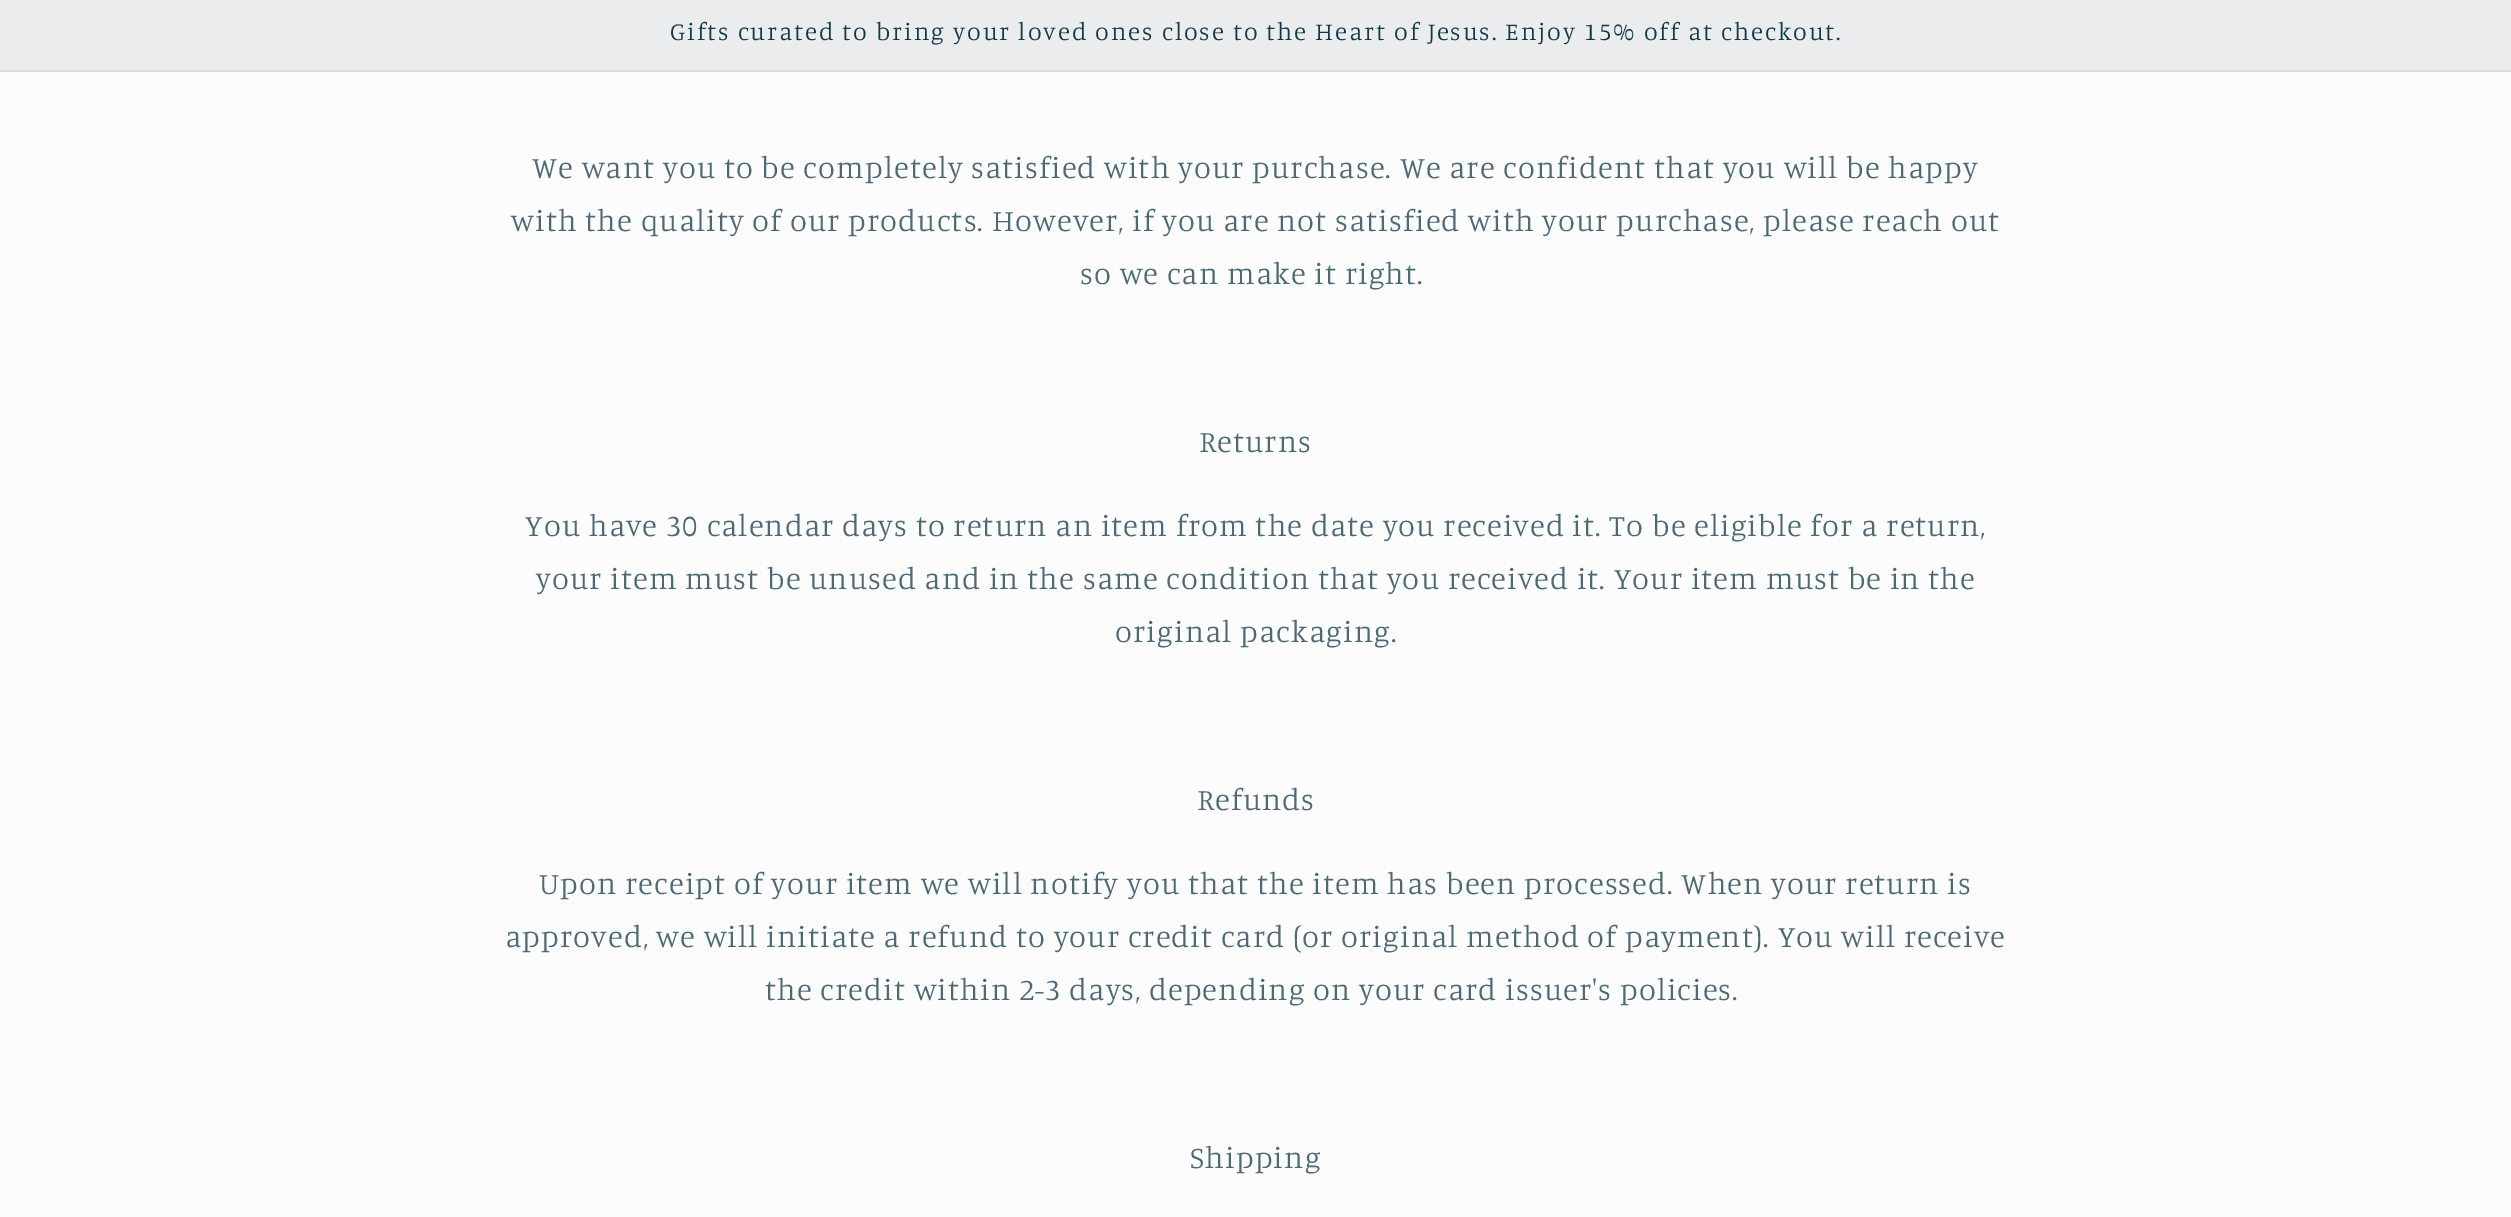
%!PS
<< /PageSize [2511 1217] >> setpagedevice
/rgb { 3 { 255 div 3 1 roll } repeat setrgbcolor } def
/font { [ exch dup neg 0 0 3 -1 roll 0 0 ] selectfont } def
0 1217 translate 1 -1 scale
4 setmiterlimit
252 252 252 rgb
0 0 2511 1217 rectfill
235 236 237 rgb
0 0 2511 70 rectfill
217 222 224 rgb
0 70 2511 2 rectfill
/Manuale-Light 25.05 font
16 57 72 rgb
670 40 moveto 1.93 0 (Gifts curated to bring your loved ones close to the Heart of Jesus. Enjoy 15% off at checkout.) ashow
/Manuale-Light 30.8 font
75 106 117 rgb
532 178 moveto 1.16 0 (We want you to be completely satisfied with your purchase. We are confident that you will be happy) ashow
511 231 moveto 1.16 0 (with the quality of our products. However, if you are not satisfied with your purchase, please reach out) ashow
1080 284 moveto 1.16 0 (so we can make it right.) ashow
1199 452 moveto 1.16 0 (Returns) ashow
525 536 moveto 1.16 0 (You have 30 calendar days to return an item from the date you received it. To be eligible for a return,) ashow
536 589 moveto 1.16 0 (your item must be unused and in the same condition that you received it. Your item must be in the) ashow
1115 642 moveto 1.16 0 (original packaging.) ashow
1197 810 moveto 1.16 0 (Refunds) ashow
539 894 moveto 1.16 0 (Upon receipt of your item we will notify you that the item has been processed. When your return is) ashow
505 947 moveto 1.16 0 (approved, we will initiate a refund to your credit card \(or original method of payment\). You will receive) ashow
765 1000 moveto 1.16 0 (the credit within 2-3 days, depending on your card issuer's policies.) ashow
1190 1168 moveto 1.16 0 (Shipping) ashow
showpage
